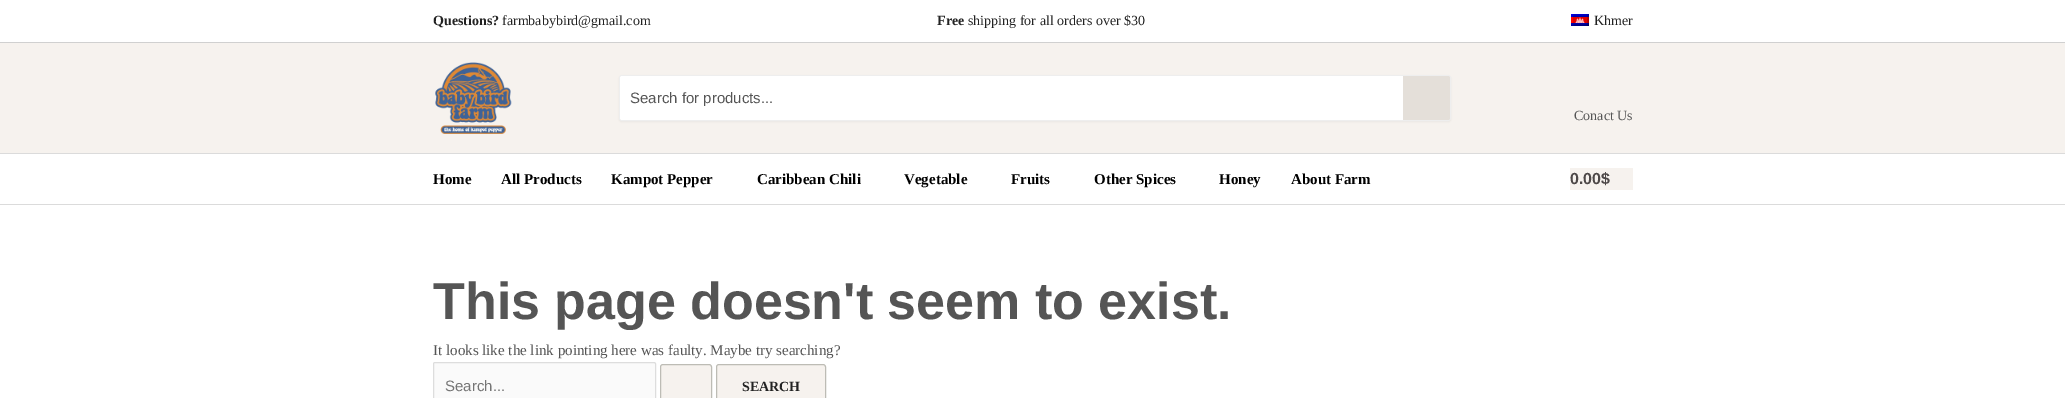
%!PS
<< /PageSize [2065 398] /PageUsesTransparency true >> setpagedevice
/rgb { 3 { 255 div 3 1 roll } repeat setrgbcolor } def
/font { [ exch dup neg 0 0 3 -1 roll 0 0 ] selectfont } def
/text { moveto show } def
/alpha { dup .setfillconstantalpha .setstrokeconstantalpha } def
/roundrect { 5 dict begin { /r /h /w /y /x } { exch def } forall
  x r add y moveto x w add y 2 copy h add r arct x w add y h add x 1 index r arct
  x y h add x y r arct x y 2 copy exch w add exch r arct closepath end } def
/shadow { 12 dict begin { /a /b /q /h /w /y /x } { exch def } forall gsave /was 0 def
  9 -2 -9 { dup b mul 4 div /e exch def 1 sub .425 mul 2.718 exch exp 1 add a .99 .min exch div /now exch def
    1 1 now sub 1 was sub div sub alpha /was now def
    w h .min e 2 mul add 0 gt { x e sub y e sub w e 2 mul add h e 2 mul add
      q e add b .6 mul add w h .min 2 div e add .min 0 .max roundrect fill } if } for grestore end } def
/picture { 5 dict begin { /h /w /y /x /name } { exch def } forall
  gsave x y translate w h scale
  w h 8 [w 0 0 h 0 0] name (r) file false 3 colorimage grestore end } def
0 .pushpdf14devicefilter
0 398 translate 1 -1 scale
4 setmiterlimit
255 255 255 rgb
0 0 2065 398 rectfill
208 208 208 rgb
0 42 2065 1 rectfill
(img_01.rgb) 1571 14 18 12 picture
246 242 238 rgb
0 43 2065 110 rectfill
(img_02.rgb) 435 62 77 72 picture
0 0 0 rgb
619 76 832 46 3 1 0.05 shadow
238 238 238 rgb
619.5 75.5 831 45 2.5 roundrect stroke
255 255 255 rgb
622 76 moveto 781 0 rlineto 0 44 rlineto -781 0 rlineto -1 0 -2 -1 -2 -2 rcurveto 0 -40 rlineto 0 -1 1 -2 2 -2 rcurveto closepath fill
228 223 217 rgb
1403 76 moveto 45 0 rlineto 1 0 2 1 2 2 rcurveto 0 40 rlineto 0 1 -1 2 -2 2 rcurveto -45 0 rlineto closepath fill
219 219 219 rgb
0 153 2065 1 rectfill
0 204 2065 1 rectfill
246 242 238 rgb
1570 168 63 22 rectfill
250 250 250 rgb
433.5 362.5 222 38 1.5 roundrect gsave fill grestore
221 221 221 rgb
stroke
246 242 238 rgb
660.5 364.5 51 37 2.5 roundrect gsave fill grestore
189 188 181 rgb
stroke
246 242 238 rgb
716.5 364.5 109 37 2.5 roundrect gsave fill grestore
189 188 181 rgb
stroke
/LiberationSerif-Bold 14 font
34 34 34 rgb
(Questions?) 433 25 text
/LiberationSerif-Regular 14 font
(farmbabybird@gmail.com) 502 25 text
/LiberationSerif-Bold 14 font
(Free) 937 25 text
/LiberationSerif-Regular 14 font
(shipping for all orders over $30) 968 25 text
(Khmer) 1594 25 text
/LiberationSans-Regular 15 font
85 85 85 rgb
(Search for products...) 630 103 text
/LiberationSerif-Regular 14 font
(Conact Us) 1574 120 text
/LiberationSerif-Bold 15 font
0 0 0 rgb
(Home) 433 184 text
(All Products) 501 184 text
(Kampot Pepper) 611 184 text
(Caribbean Chili) 757 184 text
(Vegetable) 904 184 text
(Fruits) 1011 184 text
(Other Spices) 1094 184 text
(Honey) 1219 184 text
(About Farm) 1291 184 text
/LiberationSans-Bold 16 font
77 72 72 rgb
(0.00$) 1570 184 text
/LiberationSans-Bold 52 font
85 85 85 rgb
(This page doesn't seem to exist.) 433 319 text
/LiberationSerif-Regular 15 font
(It looks like the link pointing here was faulty. Maybe try searching?) 433 355 text
/LiberationSans-Regular 15 font
117 117 117 rgb
(Search...) 445 391 text
/LiberationSerif-Bold 14 font
34 34 34 rgb
(SEARCH) 742 391 text
.poppdf14devicefilter showpage
